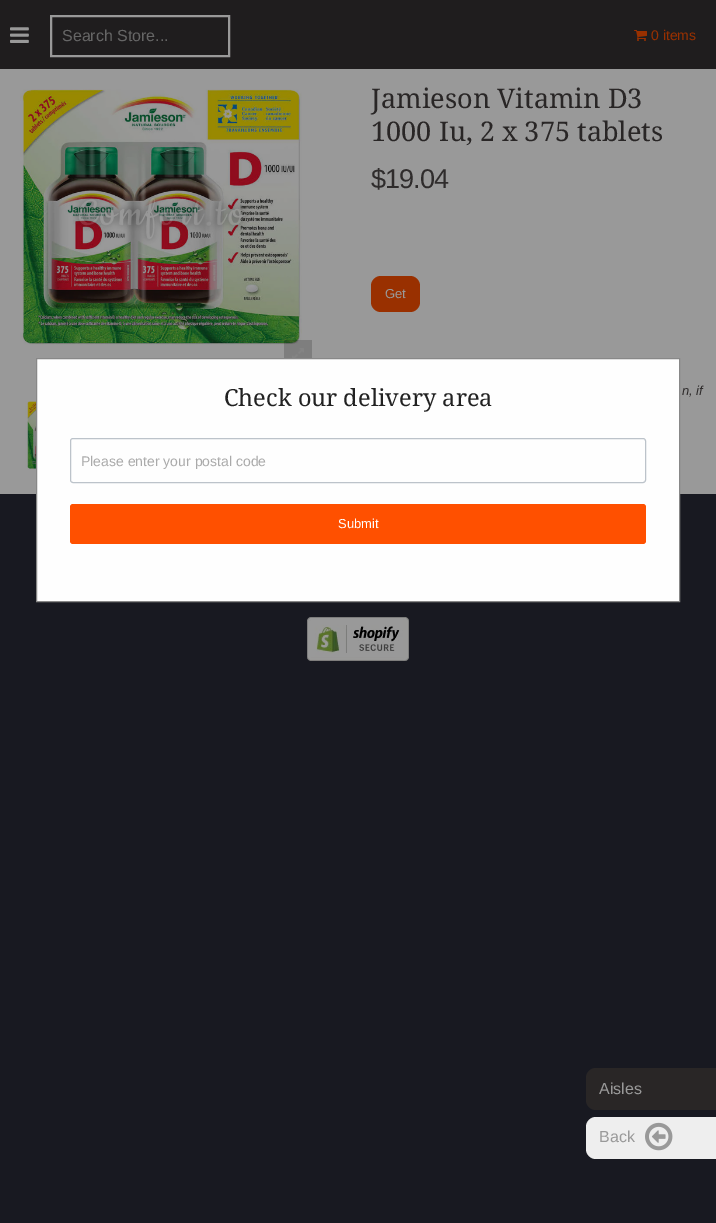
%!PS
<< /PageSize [716 1223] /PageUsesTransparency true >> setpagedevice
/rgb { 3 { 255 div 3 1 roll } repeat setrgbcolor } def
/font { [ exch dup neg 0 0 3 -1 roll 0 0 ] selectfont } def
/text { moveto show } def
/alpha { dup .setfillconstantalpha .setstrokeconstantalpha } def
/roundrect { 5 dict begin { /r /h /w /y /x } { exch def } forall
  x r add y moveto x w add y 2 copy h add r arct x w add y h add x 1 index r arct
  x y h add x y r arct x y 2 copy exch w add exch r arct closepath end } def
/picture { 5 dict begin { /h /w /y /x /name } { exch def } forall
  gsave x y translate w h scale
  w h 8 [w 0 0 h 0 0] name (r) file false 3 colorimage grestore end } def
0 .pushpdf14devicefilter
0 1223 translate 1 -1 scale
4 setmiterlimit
24 25 33 rgb
0 0 716 1223 rectfill
31 29 30 rgb
0 0 716 69 rectfill
(img_01.rgb) 10 27 19 16 picture
153 153 153 rgb
2 setlinewidth
51 16 178 40 rectstroke
(img_02.rgb) 634 30 13 11 picture
0 69 716 425 rectfill
(img_03.rgb) 20 89 282 256 picture
0.2 alpha
20 20 20 rgb
284 340 28 18 rectfill
1 alpha
(img_04.rgb) 292 348 12 10 picture
(img_05.rgb) 25 401 11 69 picture
153 48 0 rgb
371 276 49 36 10 roundrect fill
254 254 254 rgb
36.5 358.5 moveto 643 0 rlineto 0 243 rlineto -643 0 rlineto closepath gsave fill grestore
136 136 136 rgb
1 setlinewidth
stroke
188 195 202 rgb
70.5 438.5 575 44 2.5 roundrect stroke
255 80 0 rgb
70 504 576 40 3 roundrect fill
(img_06.rgb) 307 617 102 44 picture
41 38 38 rgb
596 1068 moveto 120 0 rlineto 0 42 rlineto -120 0 rlineto -5.5 0 -10 -4.5 -10 -10 rcurveto 0 -22 rlineto 0 -5.5 4.5 -10 10 -10 rcurveto closepath fill
238 238 238 rgb
596 1117 moveto 120 0 rlineto 0 42 rlineto -120 0 rlineto -5.5 0 -10 -4.5 -10 -10 rcurveto 0 -22 rlineto 0 -5.5 4.5 -10 10 -10 rcurveto closepath fill
(img_07.rgb) 645 1122 28 29 picture
/LiberationSans-Regular 16 font
102 102 102 rgb
(Search Store...) 62 41 text
/LiberationSans-Regular 14 font
153 48 0 rgb
(0 items) 651 40 text
/DroidSerif-Regular 27.1 font
41 38 38 rgb
(Jamieson Vitamin D3) 371 108 text
(1000 Iu, 2 x 375 tablets) 371 141 text
/LiberationSans-Regular 27.1 font
47 44 44 rgb
371 188 moveto -1 0 ($19.04) ashow
/LiberationSans-Regular 13 font
153 153 153 rgb
(Get) 385 298 text
/LiberationSans-Italic 13 font
47 44 44 rgb
(n, if) 682 395 text
/DroidSerif-Regular 23.6 font
34 34 34 rgb
(Check our delivery area) 224 406 text
/LiberationSans-Regular 14 font
170 170 170 rgb
(Please enter your postal code) 81 466 text
/LiberationSans-Regular 13 font
255 255 255 rgb
(Submit) 338 528 text
/LiberationSans-Regular 16 font
153 153 153 rgb
(Aisles) 599 1094 text
(Back) 599 1142 text
.poppdf14devicefilter showpage
